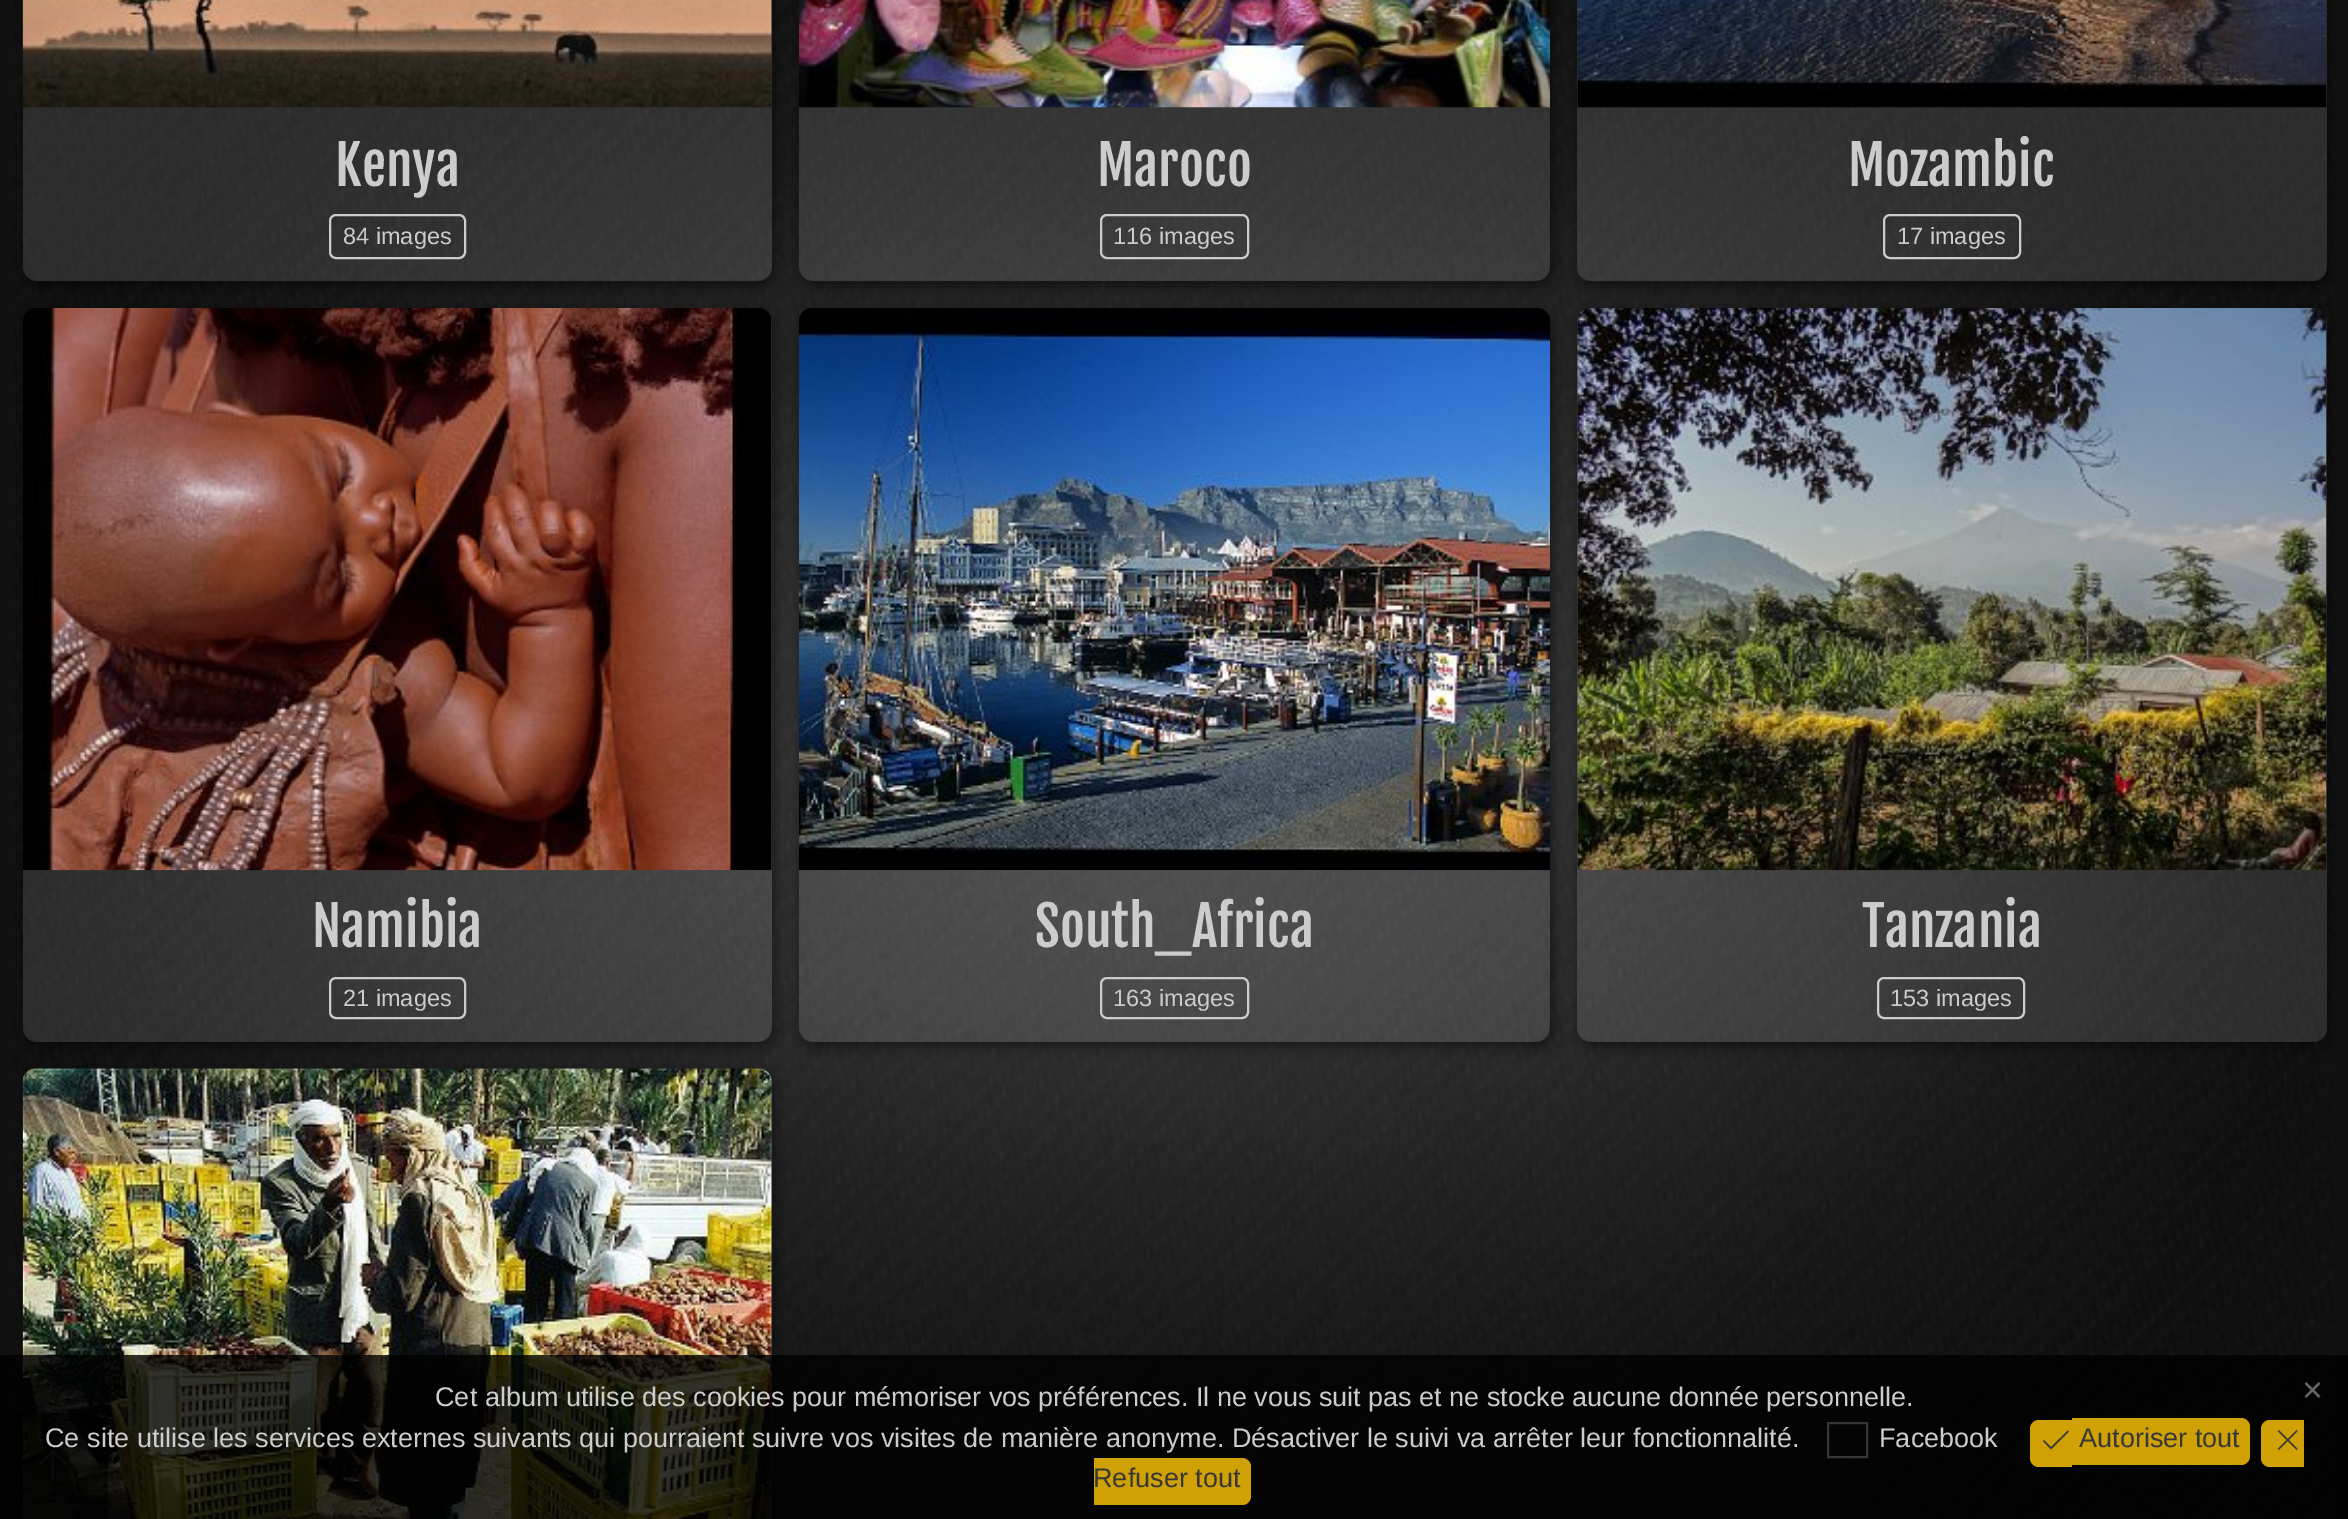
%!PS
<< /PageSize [2348 1519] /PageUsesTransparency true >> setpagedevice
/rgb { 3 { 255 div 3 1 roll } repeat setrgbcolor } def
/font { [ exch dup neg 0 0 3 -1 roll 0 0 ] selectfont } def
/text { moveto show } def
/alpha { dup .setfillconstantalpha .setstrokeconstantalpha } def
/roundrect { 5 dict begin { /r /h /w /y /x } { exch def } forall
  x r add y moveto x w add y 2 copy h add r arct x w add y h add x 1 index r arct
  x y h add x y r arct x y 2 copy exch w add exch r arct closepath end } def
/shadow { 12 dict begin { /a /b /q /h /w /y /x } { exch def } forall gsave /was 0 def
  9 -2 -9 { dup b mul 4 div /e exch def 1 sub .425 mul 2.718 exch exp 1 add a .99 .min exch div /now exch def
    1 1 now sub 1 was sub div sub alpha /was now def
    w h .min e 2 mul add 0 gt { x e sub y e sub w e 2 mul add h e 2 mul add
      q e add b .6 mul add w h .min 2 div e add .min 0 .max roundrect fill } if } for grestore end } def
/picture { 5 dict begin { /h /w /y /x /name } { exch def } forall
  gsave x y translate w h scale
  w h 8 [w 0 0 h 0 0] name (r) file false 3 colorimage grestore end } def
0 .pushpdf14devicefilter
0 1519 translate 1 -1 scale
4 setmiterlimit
17 17 17 rgb
0 0 2348 1519 rectfill
(img_01.rgb) 14 0 2321 1519 picture
gsave
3 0 moveto 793 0 rlineto 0 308 rlineto -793 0 rlineto closepath 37 -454 moveto 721 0 rlineto 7.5 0 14 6.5 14 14 rcurveto 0 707 rlineto 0 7.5 -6.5 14 -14 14 rcurveto -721 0 rlineto -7.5 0 -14 -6.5 -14 -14 rcurveto 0 -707 rlineto 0 -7.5 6.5 -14 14 -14 rcurveto closepath eoclip newpath
0 0 0 rgb
25 -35 749 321 14 7 0.52 shadow
grestore
0.13 alpha
238 238 238 rgb
23 -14 749 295 14 roundrect fill
1 alpha
(img_02.rgb) 22 0 750 108 picture
204 204 204 rgb
2 setlinewidth
330 215 135 43 6 roundrect stroke
gsave
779 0 moveto 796 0 rlineto 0 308 rlineto -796 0 rlineto closepath 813 -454 moveto 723 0 rlineto 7.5 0 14 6.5 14 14 rcurveto 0 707 rlineto 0 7.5 -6.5 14 -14 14 rcurveto -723 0 rlineto -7.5 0 -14 -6.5 -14 -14 rcurveto 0 -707 rlineto 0 -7.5 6.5 -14 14 -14 rcurveto closepath eoclip newpath
0 0 0 rgb
801 -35 752 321 14 7 0.52 shadow
grestore
0.13 alpha
238 238 238 rgb
799 -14 751 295 14 roundrect fill
1 alpha
(img_03.rgb) 799 0 751 108 picture
204 204 204 rgb
1101 215 147 43 6 roundrect stroke
gsave
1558 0 moveto 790 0 rlineto 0 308 rlineto -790 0 rlineto closepath 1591 -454 moveto 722 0 rlineto 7.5 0 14 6.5 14 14 rcurveto 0 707 rlineto 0 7.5 -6.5 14 -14 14 rcurveto -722 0 rlineto -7.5 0 -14 -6.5 -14 -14 rcurveto 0 -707 rlineto 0 -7.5 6.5 -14 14 -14 rcurveto closepath eoclip newpath
0 0 0 rgb
1580 -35 749 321 14 7 0.52 shadow
grestore
0.13 alpha
238 238 238 rgb
1577 -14 750 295 14 roundrect fill
1 alpha
(img_04.rgb) 1577 0 750 108 picture
204 204 204 rgb
1884 215 136 43 6 roundrect stroke
gsave
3 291 moveto 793 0 rlineto 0 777 rlineto -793 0 rlineto closepath 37 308 moveto 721 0 rlineto 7.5 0 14 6.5 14 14 rcurveto 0 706 rlineto 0 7.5 -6.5 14 -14 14 rcurveto -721 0 rlineto -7.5 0 -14 -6.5 -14 -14 rcurveto 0 -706 rlineto 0 -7.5 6.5 -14 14 -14 rcurveto closepath eoclip newpath
0 0 0 rgb
25 313 749 733 14 7 0.52 shadow
grestore
0.13 alpha
238 238 238 rgb
23 308 749 734 14 roundrect fill
1 alpha
(img_05.rgb) 23 308 749 563 picture
204 204 204 rgb
330 978 135 40 6 roundrect stroke
gsave
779 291 moveto 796 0 rlineto 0 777 rlineto -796 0 rlineto closepath 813 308 moveto 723 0 rlineto 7.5 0 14 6.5 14 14 rcurveto 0 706 rlineto 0 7.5 -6.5 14 -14 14 rcurveto -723 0 rlineto -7.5 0 -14 -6.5 -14 -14 rcurveto 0 -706 rlineto 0 -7.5 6.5 -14 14 -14 rcurveto closepath eoclip newpath
0 0 0 rgb
801 313 752 733 14 7 0.52 shadow
grestore
0.13 alpha
238 238 238 rgb
799 308 751 734 14 roundrect fill
1 alpha
(img_06.rgb) 799 308 751 563 picture
204 204 204 rgb
1101 978 147 40 6 roundrect stroke
gsave
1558 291 moveto 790 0 rlineto 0 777 rlineto -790 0 rlineto closepath 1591 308 moveto 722 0 rlineto 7.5 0 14 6.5 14 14 rcurveto 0 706 rlineto 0 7.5 -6.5 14 -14 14 rcurveto -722 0 rlineto -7.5 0 -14 -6.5 -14 -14 rcurveto 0 -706 rlineto 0 -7.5 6.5 -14 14 -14 rcurveto closepath eoclip newpath
0 0 0 rgb
1580 313 749 733 14 7 0.52 shadow
grestore
0.13 alpha
238 238 238 rgb
1577 308 750 734 14 roundrect fill
1 alpha
(img_07.rgb) 1577 308 750 563 picture
204 204 204 rgb
1878 978 146 40 6 roundrect stroke
0 0 0 rgb
25 1073 749 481 14 7 0.52 shadow
0.13 alpha
238 238 238 rgb
23 1069 749 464 14 roundrect fill
1 alpha
(img_08.rgb) 22 1068 750 451 picture
0.5 alpha
0 0 0 rgb
0 1413 moveto 99 0 rlineto 5 0 9 4 9 9 rcurveto 0 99 rlineto -108 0 rlineto closepath fill
1 alpha
55 55 55 rgb
54 1480.5 moveto 0 -27 rlineto 11.5 11.5 rlineto 1.5 -1.5 rlineto -14 -14 rlineto -14.5 14 rlineto 1.5 1.5 rlineto 11.5 -11.5 rlineto 0 27 rlineto closepath fill
0.8 alpha
0 0 0 rgb
0 1355 2348 164 rectfill
1 alpha
54 54 54 rgb
1828 1423 39 34 rectstroke
208 161 5 rgb
2039 1420 moveto 33 0 rlineto 0 47 rlineto -33 0 rlineto -5 0 -9 -4 -9 -9 rcurveto 0 -29 rlineto 0 -5 4 -9 9 -9 rcurveto closepath fill
2072 1418 moveto 169 0 rlineto 5 0 9 4 9 9 rcurveto 0 29 rlineto 0 5 -4 9 -9 9 rcurveto -169 0 rlineto closepath fill
55 55 55 rgb
2068 1430.5 moveto -17 16.5 rlineto -7 -7 rlineto -1 1 rlineto 8 8.5 rlineto 18 -18 rlineto closepath fill
208 161 5 rgb
2270 1420 moveto 34 0 rlineto 0 47 rlineto -34 0 rlineto -5 0 -9 -4 -9 -9 rcurveto 0 -29 rlineto 0 -5 4 -9 9 -9 rcurveto closepath fill
(img_09.rgb) 2277 1430 21 20 picture
1094 1458 moveto 148 0 rlineto 5 0 9 4 9 9 rcurveto 0 29 rlineto 0 5 -4 9 -9 9 rcurveto -148 0 rlineto closepath fill
/FjallaOne-Regular 54 font
204 204 204 rgb
(Kenya) 335 186 text
/LiberationSans-Regular 23.5 font
(84 images) 343 244 text
/FjallaOne-Regular 54 font
(Maroco) 1097 186 text
/LiberationSans-Regular 23.5 font
(116 images) 1113 244 text
/FjallaOne-Regular 54 font
(Mozambic) 1848 186 text
/LiberationSans-Regular 23.5 font
(17 images) 1897 244 text
/FjallaOne-Regular 54 font
(Namibia) 312 947 text
/LiberationSans-Regular 23.5 font
(21 images) 343 1006 text
/FjallaOne-Regular 54 font
(South_Africa) 1035 947 text
/LiberationSans-Regular 23.5 font
(163 images) 1113 1006 text
/FjallaOne-Regular 54 font
(Tanzania) 1862 947 text
/LiberationSans-Regular 23.5 font
(153 images) 1890 1006 text
/LiberationSans-Regular 27 font
(Cet album utilise des cookies pour mémoriser vos préférences. Il ne vous suit pas et ne stocke aucune donnée personnelle.) 435 1406 text
/LiberationSans-Regular 36 font
102 102 102 rgb
(×) 2302 1402 text
/LiberationSans-Regular 27 font
204 204 204 rgb
(Ce site utilise les services externes suivants qui pourraient suivre vos visites de manière anonyme. Désactiver le suivi va arrêter leur fonctionnalité.) 45 1447 text
(Facebook) 1879 1447 text
55 55 55 rgb
(Autoriser tout) 2079 1447 text
(Refuser tout) 1093 1487 text
.poppdf14devicefilter showpage
